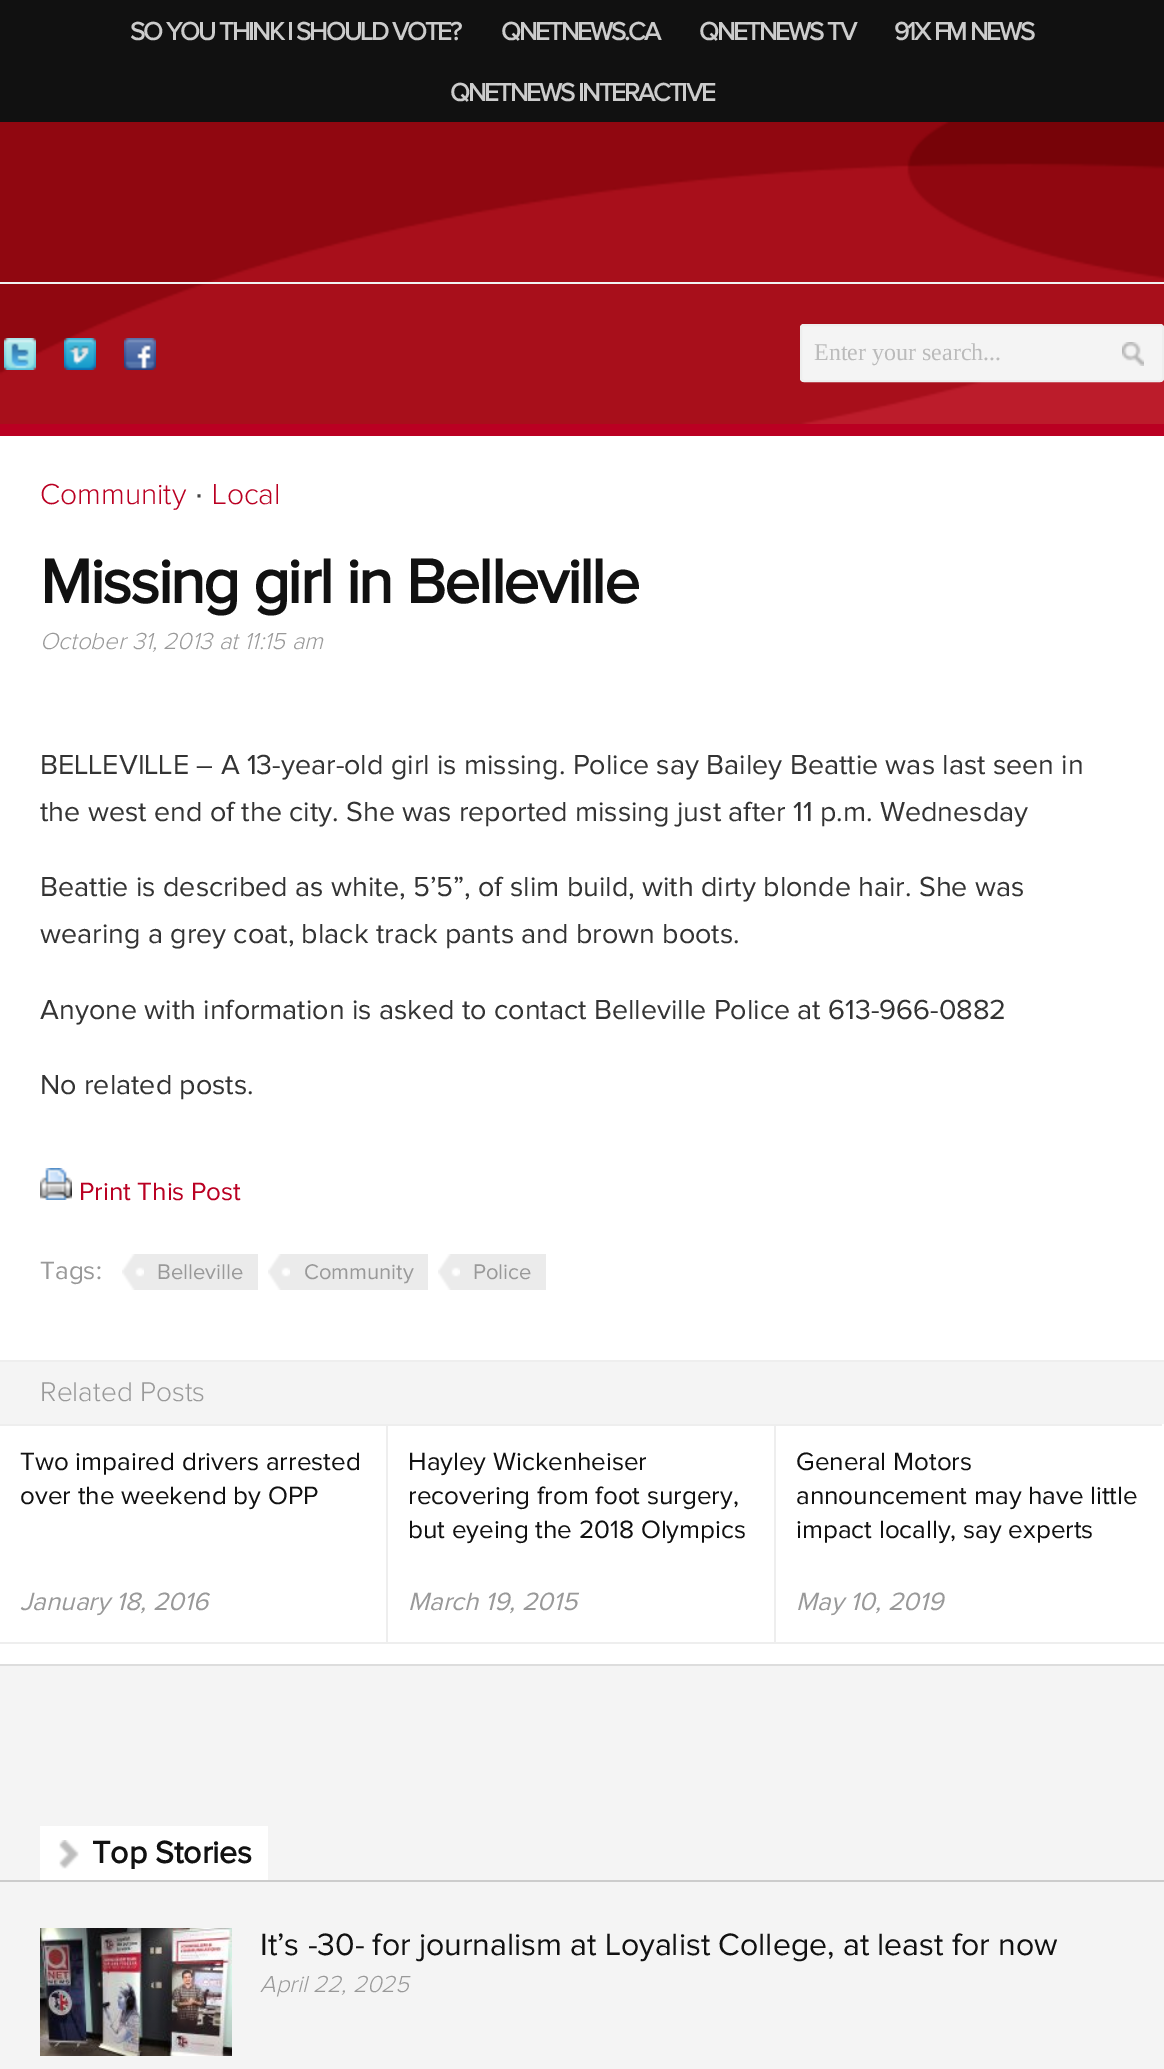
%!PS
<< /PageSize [1164 2069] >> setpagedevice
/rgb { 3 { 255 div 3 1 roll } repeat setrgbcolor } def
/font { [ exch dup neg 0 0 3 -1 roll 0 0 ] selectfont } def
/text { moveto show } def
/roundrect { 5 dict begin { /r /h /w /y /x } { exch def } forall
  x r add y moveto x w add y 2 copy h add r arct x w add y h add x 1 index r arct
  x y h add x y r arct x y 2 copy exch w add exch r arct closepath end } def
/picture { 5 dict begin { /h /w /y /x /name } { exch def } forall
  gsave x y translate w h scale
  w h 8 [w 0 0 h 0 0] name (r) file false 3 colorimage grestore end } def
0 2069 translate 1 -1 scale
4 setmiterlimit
255 255 255 rgb
0 0 1164 2069 rectfill
17 17 17 rgb
0 0 1164 122 rectfill
(img_01.rgb) 0 122 1164 302 picture
241 241 241 rgb
0 282 1164 2 rectfill
(img_02.rgb) 4 338 32 32 picture
(img_03.rgb) 64 338 32 32 picture
(img_04.rgb) 124 338 32 32 picture
244 244 244 rgb
800 324 364 58 4 roundrect fill
(img_05.rgb) 1122 342 22 24 picture
238 238 238 rgb
2 setlinewidth
801 325 362 56 3 roundrect stroke
186 0 34 rgb
0 424 1164 12 rectfill
238 238 238 rgb
0 1360 1164 2 rectfill
(img_06.rgb) 40 1168 32 32 picture
235 235 235 rgb
122 1254 136 36 rectfill
(img_07.rgb) 122 1254 22 36 picture
268 1254 160 36 rectfill
(img_07.rgb) 268 1254 22 36 picture
438 1254 108 36 rectfill
(img_07.rgb) 438 1254 22 36 picture
244 244 244 rgb
0 1362 1164 62 rectfill
238 238 238 rgb
0 1424 1164 2 rectfill
386 1424 2 220 rectfill
0 1642 388 2 rectfill
774 1424 2 220 rectfill
388 1642 776 2 rectfill
255 255 255 rgb
1162 1424 2 2 rectfill
244 244 244 rgb
0 1666 1164 403 rectfill
221 221 221 rgb
0 1664 1164 2 rectfill
204 204 204 rgb
0 1880 1164 2 rectfill
255 255 255 rgb
40 1826 228 54 rectfill
(img_08.rgb) 59 1840 20 29 picture
(img_09.rgb) 40 1928 192 128 picture
/ProximaNova-Bold 26 font
204 204 204 rgb
130 40 moveto -2 0 (SO YOU THINK I SHOULD VOTE?) ashow
501 40 moveto -2 0 (QNETNEWS.CA) ashow
699 40 moveto -2 0 (QNETNEWS TV) ashow
894 40 moveto -2 0 (91X FM NEWS) ashow
450 101 moveto -2 0 (QNETNEWS INTERACTIVE) ashow
/LiberationSerif-Regular 24 font
187 187 187 rgb
(Enter your search...) 814 360 text
/ProximaNova-Light 30 font
186 0 34 rgb
(Community) 40 504 text
/LiberationSans-Regular 30 font
68 68 68 rgb
(·) 194 504 text
/ProximaNova-Light 30 font
186 0 34 rgb
(Local) 212 504 text
/ProximaNova-Bold 64 font
17 17 17 rgb
40 603 moveto -2 0 (Missing girl in Belleville) ashow
/ProximaNova-LightItalic 24 font
153 153 153 rgb
(October 31, 2013 at 11:15 am) 40 649 text
/ProximaNova-Regular 28.6 font
51 51 51 rgb
(BELLEVILLE – A 13-year-old girl is missing. Police say Bailey Beattie was last seen in) 40 774 text
(the west end of the city. She was reported missing just after 11 p.m. Wednesday) 40 821 text
(Beattie is described as white, 5’5”, of slim build, with dirty blonde hair. She was) 40 896 text
(wearing a grey coat, black track pants and brown boots.) 40 943 text
(Anyone with information is asked to contact Belleville Police at 613-966-0882) 40 1019 text
(No related posts.) 40 1094 text
/ProximaNova-Regular 26 font
186 0 34 rgb
(Print This Post) 79 1200 text
153 153 153 rgb
(Tags:) 40 1279 text
/ProximaNova-Regular 22 font
(Belleville) 157 1279 text
(Community) 304 1279 text
(Police) 473 1279 text
/ProximaNova-Light 28 font
(Related Posts) 40 1401 text
/ProximaNova-Regular 26 font
17 17 17 rgb
(Two impaired drivers arrested) 20 1470 text
(over the weekend by OPP) 20 1504 text
/ProximaNova-Italic 26 font
153 153 153 rgb
(January 18, 2016) 20 1610 text
/ProximaNova-Regular 26 font
17 17 17 rgb
(Hayley Wickenheiser) 408 1470 text
(recovering from foot surgery,) 408 1504 text
(but eyeing the 2018 Olympics) 408 1538 text
/ProximaNova-Italic 26 font
153 153 153 rgb
(March 19, 2015) 408 1610 text
/ProximaNova-Regular 26 font
17 17 17 rgb
(General Motors) 796 1470 text
(announcement may have little) 796 1504 text
(impact locally, say experts) 796 1538 text
/ProximaNova-Italic 26 font
153 153 153 rgb
(May 10, 2019) 796 1610 text
/ProximaNova-Bold 32 font
17 17 17 rgb
(Top Stories) 92 1863 text
/ProximaNova-Regular 32 font
(It’s -30- for journalism at Loyalist College, at least for now) 260 1955 text
/ProximaNova-LightItalic 24 font
153 153 153 rgb
(April 22, 2025) 260 1992 text
showpage
